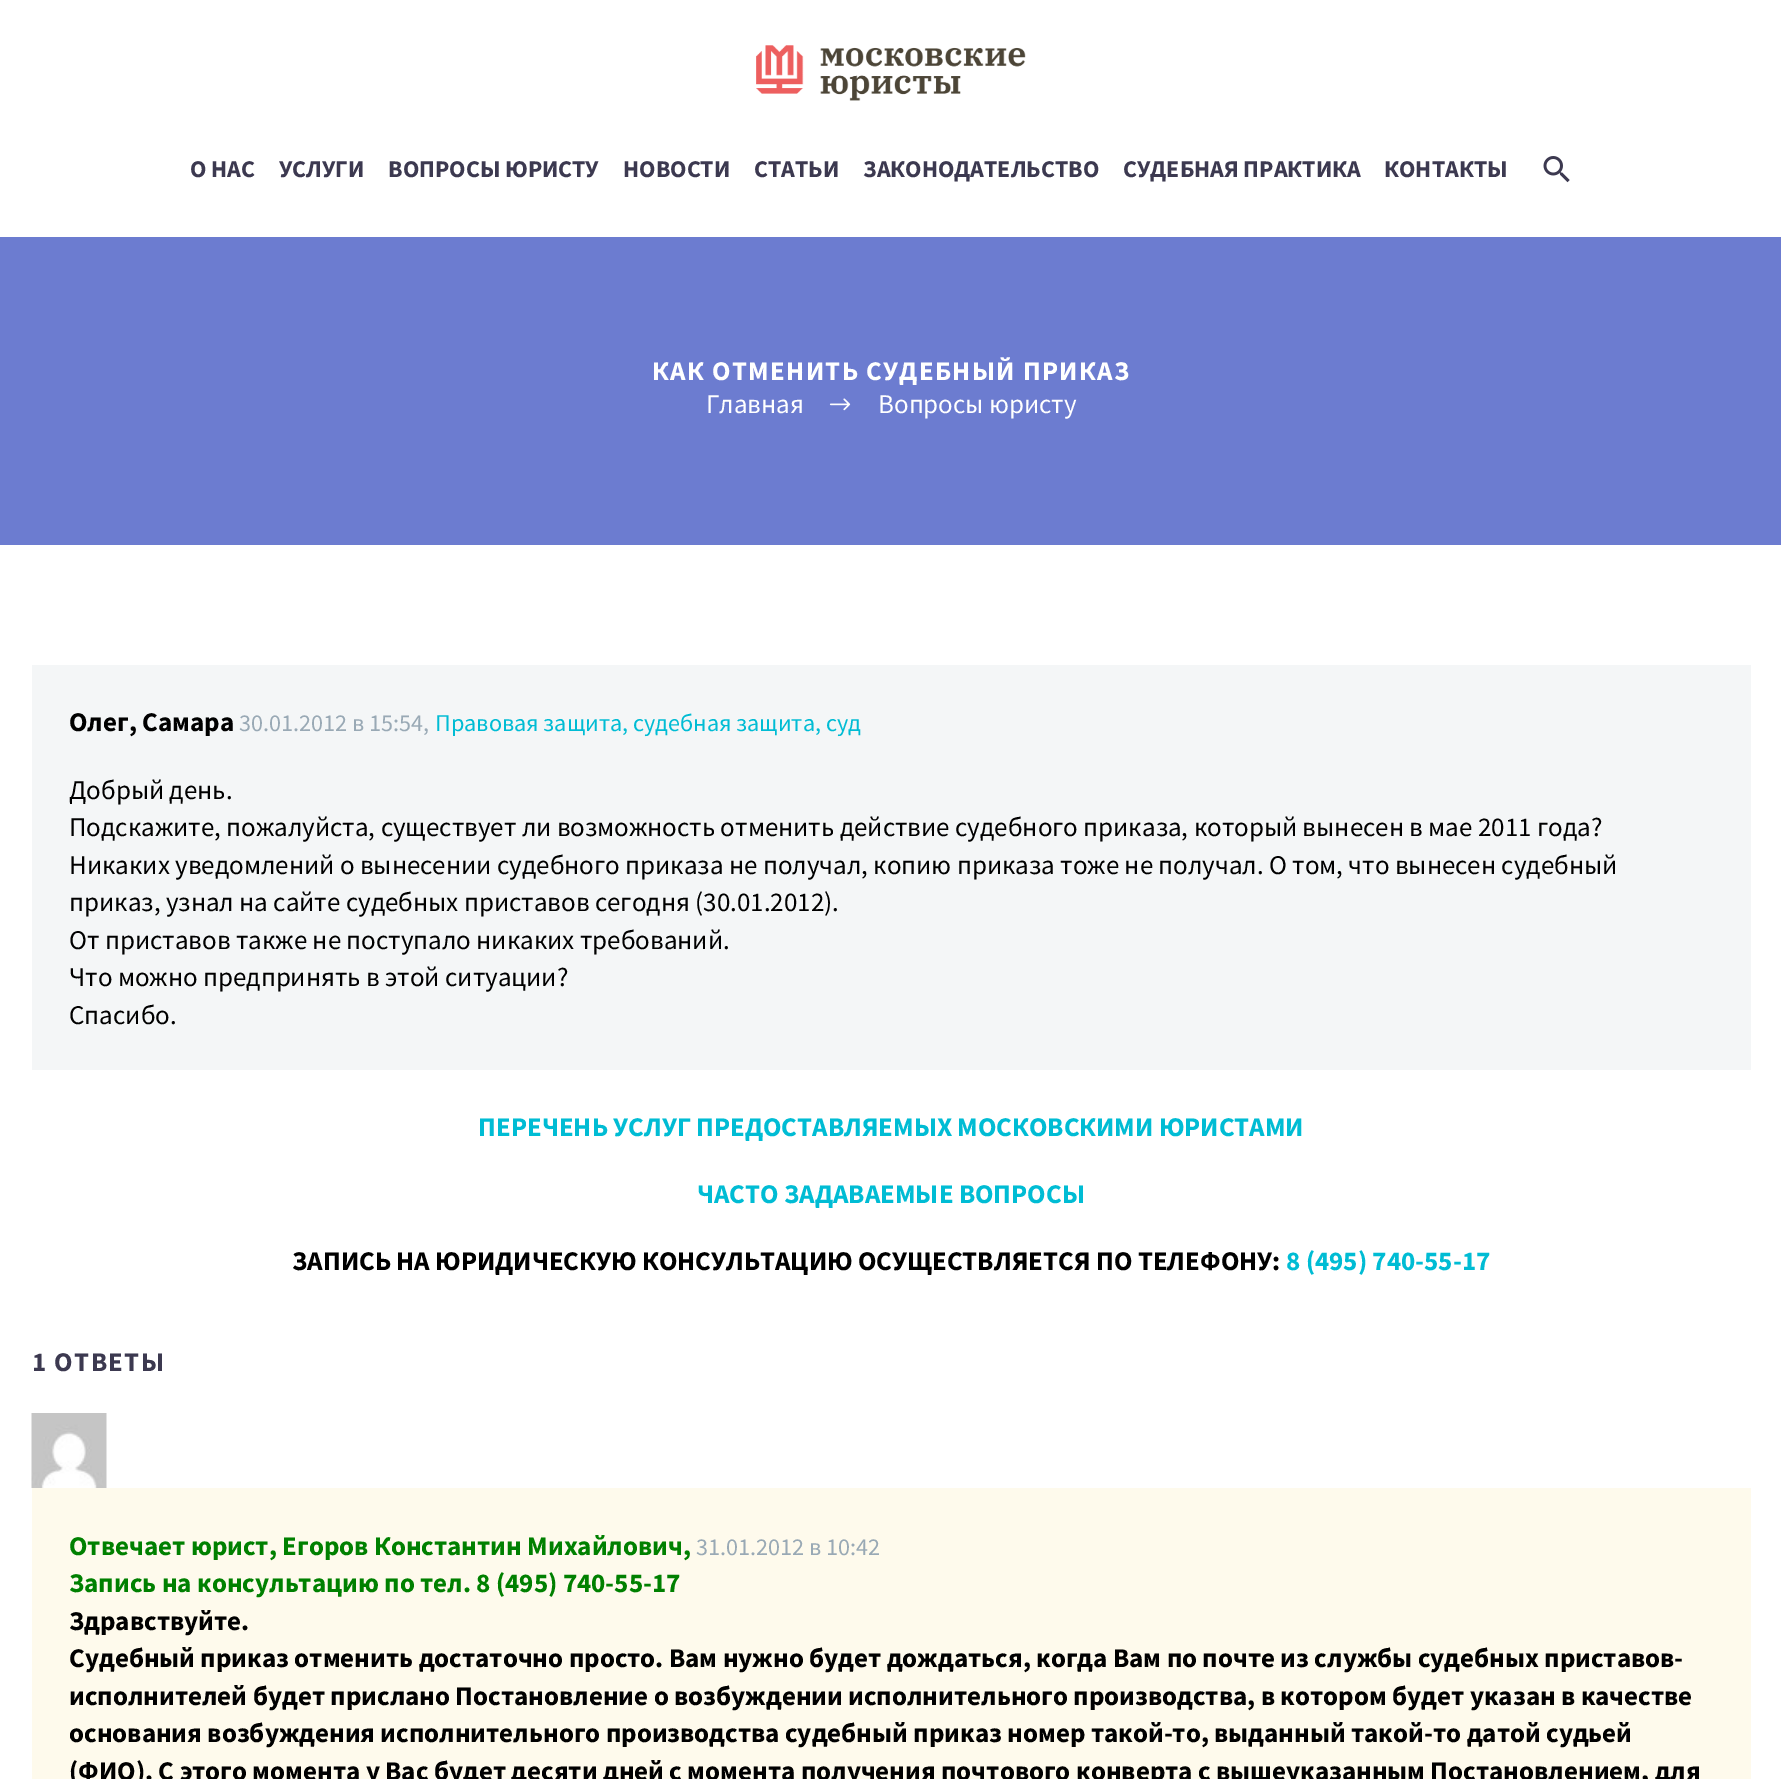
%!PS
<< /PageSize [1781 1779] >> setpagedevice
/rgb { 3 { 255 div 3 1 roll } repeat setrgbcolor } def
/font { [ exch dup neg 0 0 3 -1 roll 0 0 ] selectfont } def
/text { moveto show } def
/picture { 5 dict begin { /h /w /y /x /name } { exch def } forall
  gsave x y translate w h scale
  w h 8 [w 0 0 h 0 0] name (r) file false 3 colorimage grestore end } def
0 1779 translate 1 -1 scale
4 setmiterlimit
255 255 255 rgb
0 0 1781 1779 rectfill
(img_01.rgb) 756 45 270 56 picture
(img_02.rgb) 1543 156 27 27 picture
108 124 208 rgb
0 237 1781 308 rectfill
(img_03.rgb) 829 398 22 13 picture
244 246 247 rgb
32 665 1719 405 rectfill
(img_04.rgb) 31 1413 76 75 picture
254 250 236 rgb
32 1488 1719 291 rectfill
/SourceSansPro-Bold 24 font
60 57 80 rgb
(О НАС) 190 177 text
(УСЛУГИ) 279 177 text
(ВОПРОСЫ ЮРИСТУ) 388 177 text
(НОВОСТИ) 623 177 text
(СТАТЬИ) 754 177 text
(ЗАКОНОДАТЕЛЬСТВО) 863 177 text
(СУДЕБНАЯ ПРАКТИКА) 1123 177 text
(КОНТАКТЫ) 1384 177 text
/SourceSansPro-Bold 27 font
255 255 255 rgb
652 380 moveto 1.35 0 (КАК ОТМЕНИТЬ СУДЕБНЫЙ ПРИКАЗ) ashow
/SourceSansPro-Regular 27 font
(Главная) 706 413 text
(Вопросы юристу) 878 413 text
/SourceSansPro-Bold 27 font
0 0 0 rgb
(Олег, Самара) 69 731 text
/SourceSansPro-Regular 24.2 font
153 169 181 rgb
(30.01.2012 в 15:54,) 239 731 text
0 188 212 rgb
(Правовая защита, судебная защита, суд) 435 731 text
/SourceSansPro-Regular 27 font
0 0 0 rgb
(Добрый день.) 69 799 text
(Подскажите, пожалуйста, существует ли возможность отменить действие судебного приказа, который вынесен в мае 2011 года?) 69 836 text
(Никаких уведомлений о вынесении судебного приказа не получал, копию приказа тоже не получал. О том, что вынесен судебный) 69 874 text
(приказ, узнал на сайте судебных приставов сегодня \(30.01.2012\).) 69 911 text
(От приставов также не поступало никаких требований.) 69 949 text
(Что можно предпринять в этой ситуации?) 69 986 text
(Спасибо.) 69 1024 text
/SourceSansPro-Bold 27 font
0 188 212 rgb
(ПЕРЕЧЕНЬ УСЛУГ ПРЕДОСТАВЛЯЕМЫХ МОСКОВСКИМИ ЮРИСТАМИ) 478 1136 text
(ЧАСТО ЗАДАВАЕМЫЕ ВОПРОСЫ) 697 1203 text
0 0 0 rgb
(ЗАПИСЬ НА ЮРИДИЧЕСКУЮ КОНСУЛЬТАЦИЮ ОСУЩЕСТВЛЯЕТСЯ ПО ТЕЛЕФОНУ:) 292 1270 text
0 188 212 rgb
(8 \(495\) 740-55-17) 1286 1270 text
60 57 80 rgb
32 1371 moveto 1.35 0 (1 ОТВЕТЫ) ashow
0 128 0 rgb
(Отвечает юрист, Егоров Константин Михайлович,) 69 1555 text
(Запись на консультацию по тел. 8 \(495\) 740-55-17) 69 1592 text
/SourceSansPro-Regular 24.2 font
153 169 181 rgb
(31.01.2012 в 10:42) 696 1555 text
/SourceSansPro-Bold 27 font
0 0 0 rgb
(Здравствуйте.) 69 1630 text
(Судебный приказ отменить достаточно просто. Вам нужно будет дождаться, когда Вам по почте из службы судебных приставов-) 69 1667 text
(исполнителей будет прислано Постановление о возбуждении исполнительного производства, в котором будет указан в качестве) 69 1705 text
(основания возбуждения исполнительного производства судебный приказ номер такой-то, выданный такой-то датой судьей) 69 1742 text
(\(ФИО\). С этого момента у Вас будет десяти дней с момента получения почтового конверта с вышеуказанным Постановлением, для) 69 1780 text
showpage
